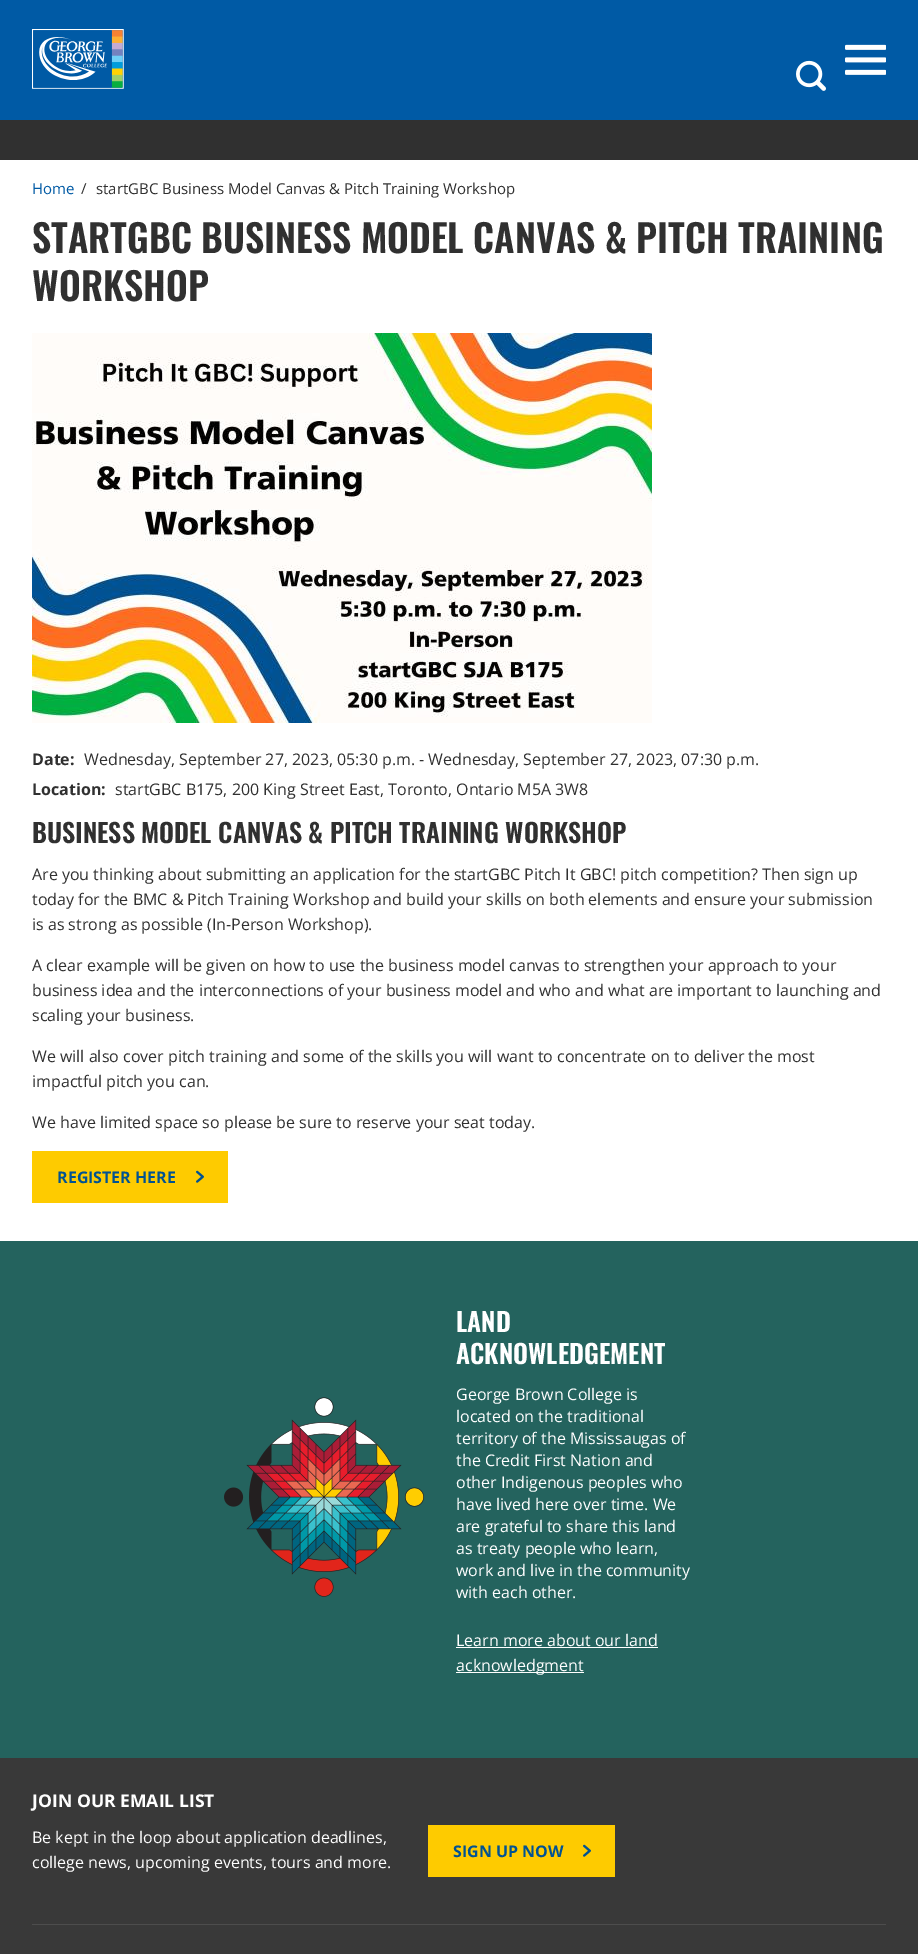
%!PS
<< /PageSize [918 1954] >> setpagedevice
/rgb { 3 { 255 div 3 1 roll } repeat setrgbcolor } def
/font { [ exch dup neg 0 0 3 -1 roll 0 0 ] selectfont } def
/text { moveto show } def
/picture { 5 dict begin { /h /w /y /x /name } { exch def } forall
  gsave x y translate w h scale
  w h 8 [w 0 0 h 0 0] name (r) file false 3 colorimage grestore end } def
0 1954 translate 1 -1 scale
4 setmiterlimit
255 255 255 rgb
0 0 918 1954 rectfill
0 90 165 rgb
0 0 918 120 rectfill
(img_01.rgb) 32 29 92 60 picture
(img_02.rgb) 845 44 41 31 picture
48 48 48 rgb
0 120 918 40 rectfill
(img_03.rgb) 796 60 30 31 picture
(img_04.rgb) 32 333 620 390 picture
254 203 0 rgb
32 1151 196 52 rectfill
(img_05.rgb) 196 1170 8 13 picture
36 99 94 rgb
0 1241 918 517 rectfill
(img_06.rgb) 224 1397 200 200 picture
255 255 255 rgb
456 1647 202 1 rectfill
456 1672 128 1 rectfill
57 57 57 rgb
0 1758 918 196 rectfill
77 77 77 rgb
32 1924 854 1 rectfill
254 203 0 rgb
428 1825 187 52 rectfill
(img_05.rgb) 583 1844 8 13 picture
/OpenSans-Regular 15 font
0 90 165 rgb
(Home) 32 194 text
48 48 48 rgb
(/) 81 194 text
(startGBC Business Model Canvas & Pitch Training Workshop) 96 194 text
/Oswald-SemiBold 38 font
(STARTGBC BUSINESS MODEL CANVAS & PITCH TRAINING) 32 253 text
(WORKSHOP) 32 301 text
/OpenSans-Bold 16 font
(Date:) 32 765 text
/OpenSans-Regular 16 font
(Wednesday, September 27, 2023, 05:30 p.m. - Wednesday, September 27, 2023, 07:30 p.m.) 84 765 text
/OpenSans-Bold 16 font
(Location:) 32 795 text
/OpenSans-Regular 16 font
(startGBC B175, 200 King Street East, Toronto, Ontario M5A 3W8) 115 795 text
/Oswald-SemiBold 26 font
(BUSINESS MODEL CANVAS & PITCH TRAINING WORKSHOP) 32 843 text
/OpenSans-Regular 16 font
(Are you thinking about submitting an application for the startGBC Pitch It GBC! pitch competition? Then sign up) 32 880 text
(today for the BMC & Pitch Training Workshop and build your skills on both elements and ensure your submission) 32 905 text
(is as strong as possible \(In-Person Workshop\).) 32 930 text
(A clear example will be given on how to use the business model canvas to strengthen your approach to your) 32 971 text
(business idea and the interconnections of your business model and who and what are important to launching and) 32 996 text
(scaling your business.) 32 1021 text
(We will also cover pitch training and some of the skills you will want to concentrate on to deliver the most) 32 1062 text
(impactful pitch you can.) 32 1087 text
(We have limited space so please be sure to reserve your seat today.) 32 1128 text
/OpenSans-Bold 16 font
0 82 147 rgb
(REGISTER HERE) 57 1183 text
/Oswald-SemiBold 26 font
255 255 255 rgb
(LAND) 456 1332 text
(ACKNOWLEDGEMENT) 456 1364 text
/OpenSans-Regular 16 font
(George Brown College is) 456 1400 text
(located on the traditional) 456 1422 text
(territory of the Mississaugas of) 456 1444 text
(the Credit First Nation and) 456 1466 text
(other Indigenous peoples who) 456 1488 text
(have lived here over time. We) 456 1510 text
(are grateful to share this land) 456 1532 text
(as treaty people who learn,) 456 1554 text
(work and live in the community) 456 1576 text
(with each other.) 456 1598 text
(Learn more about our land) 456 1646 text
(acknowledgment) 456 1671 text
/OpenSans-Bold 17.6 font
(JOIN OUR EMAIL LIST) 32 1807 text
/OpenSans-Regular 16 font
(Be kept in the loop about application deadlines,) 32 1843 text
(college news, upcoming events, tours and more.) 32 1868 text
/OpenSans-Bold 16 font
0 82 147 rgb
(SIGN UP NOW) 453 1857 text
showpage
